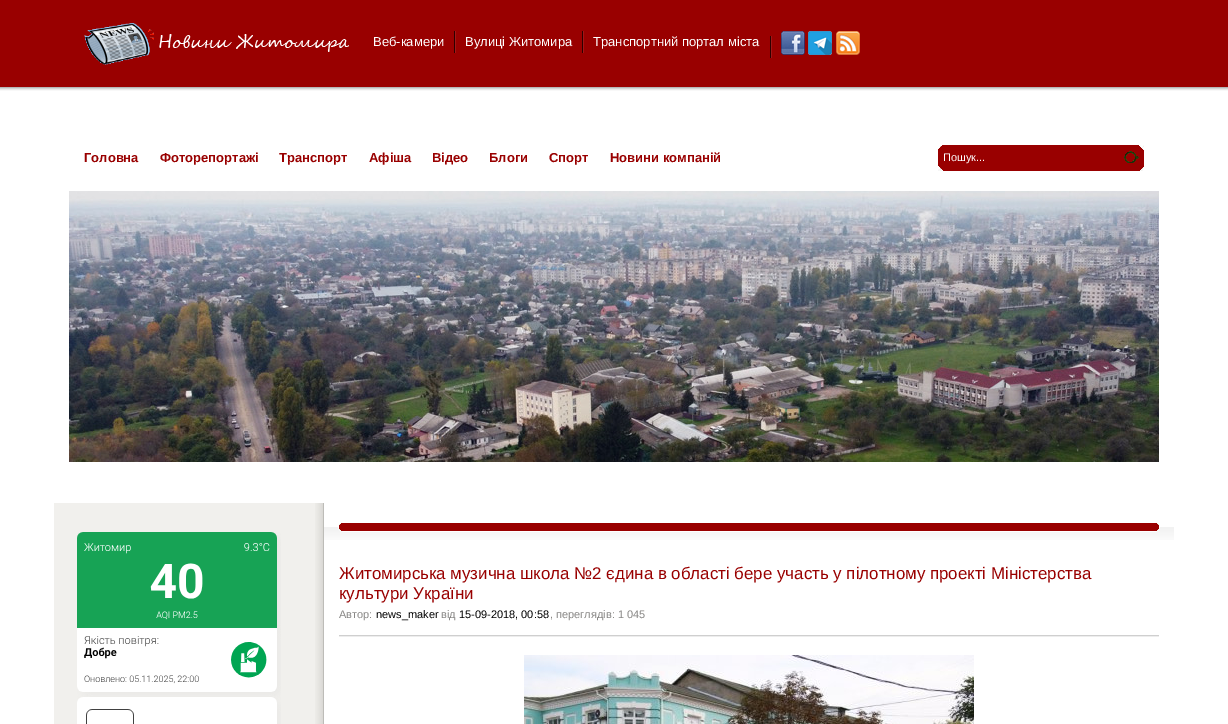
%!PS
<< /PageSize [1228 724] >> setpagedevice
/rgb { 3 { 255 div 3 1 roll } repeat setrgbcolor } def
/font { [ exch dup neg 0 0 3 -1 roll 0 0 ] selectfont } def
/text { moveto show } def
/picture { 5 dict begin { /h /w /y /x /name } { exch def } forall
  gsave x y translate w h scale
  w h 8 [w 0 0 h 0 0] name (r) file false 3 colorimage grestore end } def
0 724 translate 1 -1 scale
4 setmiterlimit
255 255 255 rgb
0 0 1228 724 rectfill
(img_01.rgb) 0 87 1228 4 picture
153 0 0 rgb
0 0 1228 87 rectfill
(img_02.rgb) 84 23 265 42 picture
(img_03.rgb) 454 31 2 22 picture
(img_03.rgb) 582 31 2 22 picture
(img_03.rgb) 770 36 2 22 picture
(img_04.rgb) 781 31 24 24 picture
(img_05.rgb) 808 31 24 24 picture
(img_06.rgb) 836 31 24 24 picture
(img_07.rgb) 938 145 206 26 picture
(img_08.rgb) 1117 145 27 26 picture
(img_09.rgb) 69 191 1090 271 picture
241 240 237 rgb
54 503 261 221 rectfill
(img_10.rgb) 315 503 9 221 picture
(img_11.rgb) 77 532 204 192 picture
(img_12.rgb) 324 523 850 17 picture
(img_13.rgb) 1157 523 17 9 picture
237 237 237 rgb
339 636 820 1 rectfill
207 207 207 rgb
339 635 820 1 rectfill
(img_14.rgb) 524 655 450 69 picture
/LiberationSans-Regular 13 font
255 255 255 rgb
(Веб-камери) 373 46 text
(Вулиці Житомира) 465 46 text
(Транспортний портал міста) 593 46 text
/LiberationSans-Bold 13 font
153 0 0 rgb
(Головна) 84 162 text
(Фоторепортажі) 160 162 text
(Транспорт) 279 162 text
(Афіша) 369 162 text
(Відео) 432 162 text
(Блоги) 489 162 text
(Спорт) 549 162 text
(Новини компаній) 610 162 text
/LiberationSans-Regular 11 font
255 255 255 rgb
(Пошук...) 943 161 text
/LiberationSans-Regular 16.9 font
153 0 0 rgb
(Житомирська музична школа №2 єдина в області бере участь у пілотному проекті Міністерства) 339 579 text
(культури України) 339 599 text
/LiberationSans-Regular 11 font
136 135 133 rgb
(Автор:) 339 618 text
0 0 0 rgb
(news_maker) 376 618 text
136 135 133 rgb
(від) 441 618 text
0 0 0 rgb
(15-09-2018, 00:58) 459 618 text
136 135 133 rgb
(, переглядів: 1 045) 550 618 text
showpage
